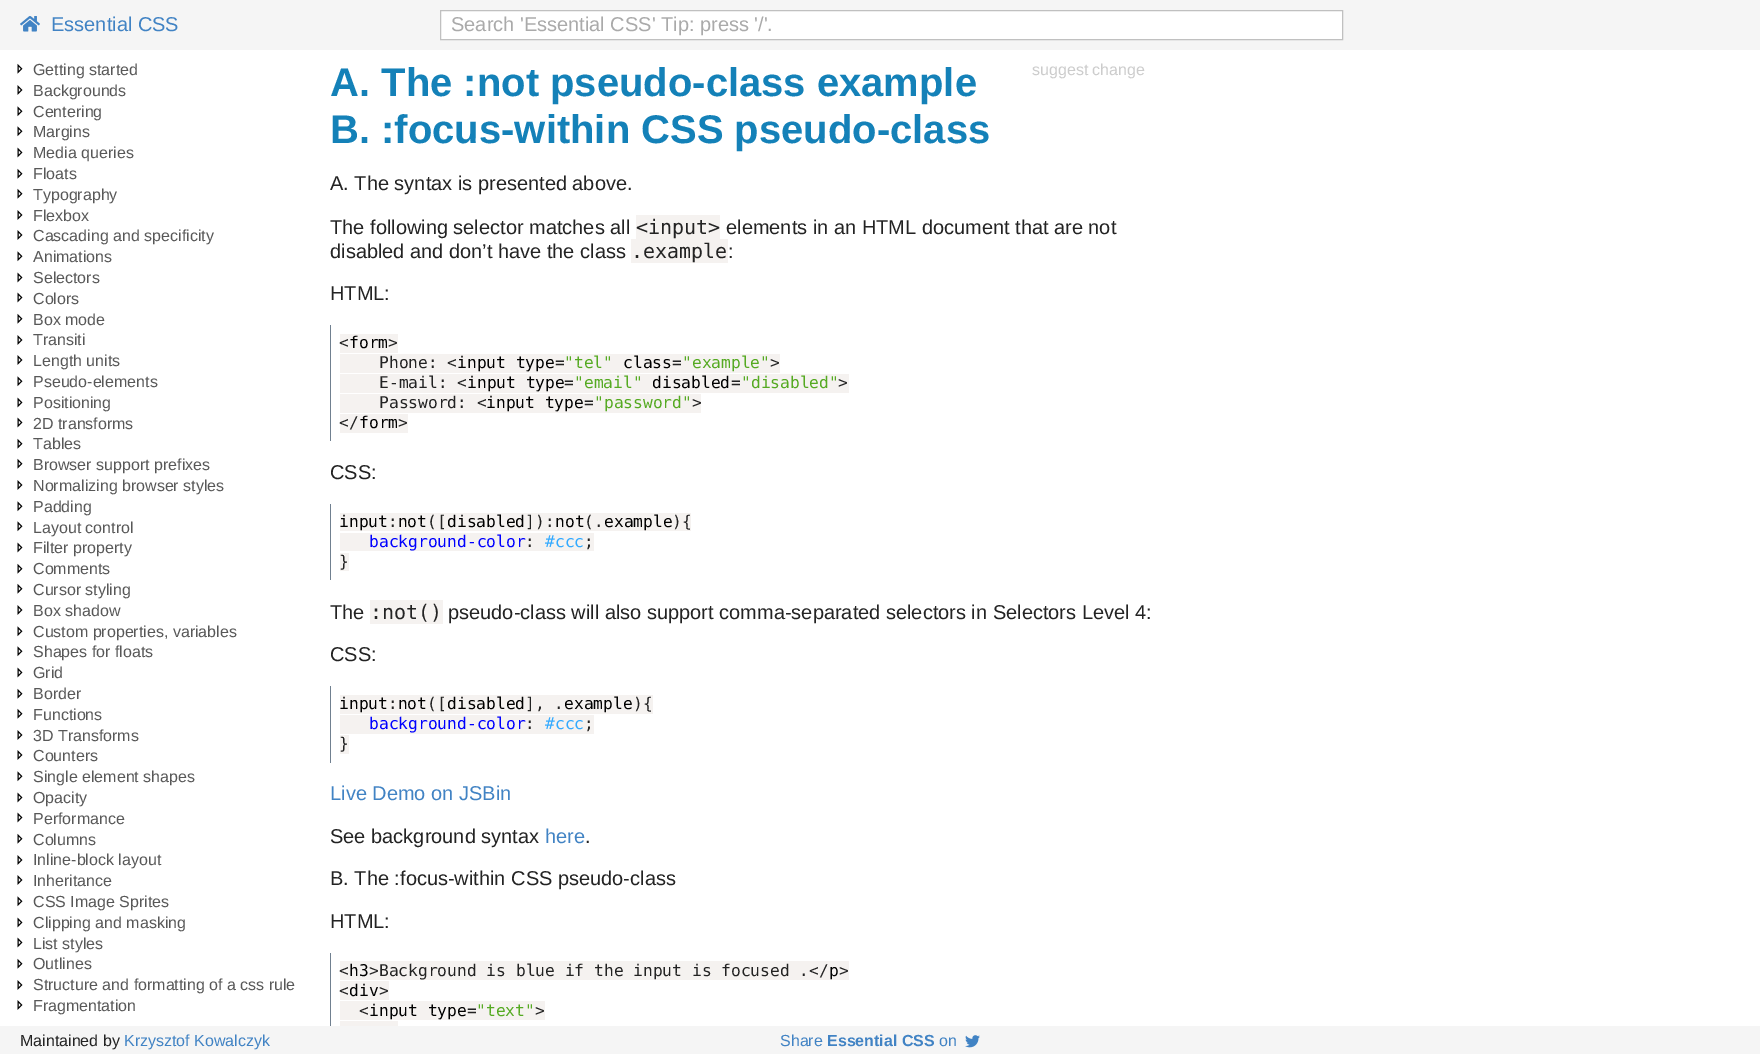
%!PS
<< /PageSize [1760 1054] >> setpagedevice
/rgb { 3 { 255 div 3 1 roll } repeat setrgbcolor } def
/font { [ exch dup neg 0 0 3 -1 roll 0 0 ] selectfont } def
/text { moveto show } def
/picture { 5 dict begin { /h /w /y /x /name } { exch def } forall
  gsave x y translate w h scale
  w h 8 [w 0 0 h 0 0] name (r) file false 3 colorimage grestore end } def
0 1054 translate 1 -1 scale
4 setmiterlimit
255 255 255 rgb
0 0 1760 1054 rectfill
245 245 245 rgb
0 0 1760 50 rectfill
(img_01.rgb) 20 16 20 16 picture
255 255 255 rgb
440.5 10.5 moveto 902 0 rlineto 0 29 rlineto -902 0 rlineto closepath gsave fill grestore
192 192 192 rgb
stroke
(img_02.rgb) 17 63 6 11 picture
(img_03.rgb) 17 85 6 10 picture
(img_04.rgb) 17 106 6 11 picture
(img_04.rgb) 17 126 6 11 picture
(img_05.rgb) 17 147 6 11 picture
(img_02.rgb) 17 168 6 11 picture
(img_02.rgb) 17 188 6 11 picture
(img_03.rgb) 17 210 6 10 picture
(img_03.rgb) 17 230 6 10 picture
(img_04.rgb) 17 251 6 11 picture
(img_05.rgb) 17 272 6 11 picture
(img_05.rgb) 17 292 6 11 picture
(img_02.rgb) 17 313 6 11 picture
(img_03.rgb) 17 335 6 10 picture
(img_03.rgb) 17 355 6 10 picture
(img_04.rgb) 17 376 6 11 picture
(img_05.rgb) 17 397 6 11 picture
(img_05.rgb) 17 417 6 11 picture
(img_02.rgb) 17 438 6 11 picture
(img_02.rgb) 17 458 6 11 picture
(img_03.rgb) 17 480 6 10 picture
(img_04.rgb) 17 501 6 11 picture
(img_04.rgb) 17 521 6 11 picture
(img_05.rgb) 17 542 6 11 picture
(img_02.rgb) 17 563 6 11 picture
(img_02.rgb) 17 583 6 11 picture
(img_03.rgb) 17 605 6 10 picture
(img_04.rgb) 17 626 6 11 picture
(img_04.rgb) 17 646 6 11 picture
(img_05.rgb) 17 667 6 11 picture
(img_02.rgb) 17 688 6 11 picture
(img_02.rgb) 17 708 6 11 picture
(img_03.rgb) 17 730 6 10 picture
(img_03.rgb) 17 750 6 10 picture
(img_04.rgb) 17 771 6 11 picture
(img_05.rgb) 17 792 6 11 picture
(img_05.rgb) 17 812 6 11 picture
(img_02.rgb) 17 833 6 11 picture
(img_03.rgb) 17 855 6 10 picture
(img_03.rgb) 17 875 6 10 picture
(img_04.rgb) 17 896 6 11 picture
(img_05.rgb) 17 917 6 11 picture
(img_05.rgb) 17 937 6 11 picture
(img_02.rgb) 17 958 6 11 picture
(img_03.rgb) 17 980 6 10 picture
(img_03.rgb) 17 1000 6 10 picture
245 242 240 rgb
636 215 84 24 rectfill
631 239 97 24 rectfill
112 128 144 rgb
330 325 1 116 rectfill
245 242 240 rgb
340 334 58 19 rectfill
340 354 440 19 rectfill
340 374 509 19 rectfill
340 394 361 19 rectfill
340 414 68 19 rectfill
112 128 144 rgb
330 504 1 76 rectfill
245 242 240 rgb
340 513 351 18 rectfill
340 533 254 18 rectfill
340 553 9 18 rectfill
370 600 73 24 rectfill
112 128 144 rgb
330 686 1 77 rectfill
245 242 240 rgb
340 695 313 19 rectfill
340 715 254 19 rectfill
340 735 9 19 rectfill
112 128 144 rgb
330 953 1 73 rectfill
245 242 240 rgb
340 961 509 19 rectfill
340 981 49 19 rectfill
340 1001 205 19 rectfill
340 1021 58 5 rectfill
245 245 245 rgb
0 1026 1760 28 rectfill
(img_06.rgb) 965 1035 15 13 picture
/LiberationSans-Regular 20 font
65 131 196 rgb
(Essential CSS) 51 31 text
170 170 170 rgb
(Search 'Essential CSS' Tip: press '/'.) 451 31 text
/LiberationSans-Regular 16 font
88 88 88 rgb
(Getting started) 33 75 text
(Backgrounds) 33 96 text
(Centering) 33 117 text
(Margins) 33 137 text
(Media queries) 33 158 text
(Floats) 33 179 text
(Typography) 33 200 text
(Flexbox) 33 221 text
(Cascading and specificity) 33 241 text
(Animations) 33 262 text
(Selectors) 33 283 text
(Colors) 33 304 text
(Box mode) 33 325 text
(Transiti) 33 345 text
(Length units) 33 366 text
(Pseudo-elements) 33 387 text
(Positioning) 33 408 text
(2D transforms) 33 429 text
(Tables) 33 449 text
(Browser support prefixes) 33 470 text
(Normalizing browser styles) 33 491 text
(Padding) 33 512 text
(Layout control) 33 533 text
(Filter property) 33 553 text
(Comments) 33 574 text
(Cursor styling) 33 595 text
(Box shadow) 33 616 text
(Custom properties, variables) 33 637 text
(Shapes for floats) 33 657 text
(Grid) 33 678 text
(Border) 33 699 text
(Functions) 33 720 text
(3D Transforms) 33 741 text
(Counters) 33 761 text
(Single element shapes) 33 782 text
(Opacity) 33 803 text
(Performance) 33 824 text
(Columns) 33 845 text
(Inline-block layout) 33 865 text
(Inheritance) 33 886 text
(CSS Image Sprites) 33 907 text
(Clipping and masking) 33 928 text
(List styles) 33 949 text
(Outlines) 33 969 text
(Structure and formatting of a css rule) 33 990 text
(Fragmentation) 33 1011 text
/LiberationSans-Bold 40 font
20 129 184 rgb
(A. The :not pseudo-class example) 330 96 text
(B. :focus-within CSS pseudo-class) 330 143 text
/LiberationSans-Regular 16 font
204 204 204 rgb
(suggest change) 1032 75 text
/LiberationSans-Regular 20 font
35 35 35 rgb
(A. The syntax is presented above.) 330 190 text
(The following selector matches all) 330 234 text
/DejaVuSansMono-Regular 20 font
(<input>) 636 234 text
/LiberationSans-Regular 20 font
(elements in an HTML document that are not) 726 234 text
(disabled and don’t have the class) 330 258 text
/DejaVuSansMono-Regular 20 font
(.example) 631 258 text
/LiberationSans-Regular 20 font
(:) 728 258 text
(HTML:) 330 300 text
/DejaVuSansMono-Regular 16.25 font
(<) 339 348 text
0 0 0 rgb
(form) 349 348 text
35 35 35 rgb
(>) 388 348 text
(Phone: <) 379 368 text
0 0 0 rgb
(input type) 457 368 text
35 35 35 rgb
(=) 555 368 text
85 170 34 rgb
("tel") 564 368 text
0 0 0 rgb
(class) 623 368 text
35 35 35 rgb
(=) 672 368 text
85 170 34 rgb
("example") 682 368 text
35 35 35 rgb
(>) 770 368 text
(E-mail: <) 379 388 text
0 0 0 rgb
(input type) 467 388 text
35 35 35 rgb
(=) 564 388 text
85 170 34 rgb
("email") 574 388 text
0 0 0 rgb
(disabled) 652 388 text
35 35 35 rgb
(=) 731 388 text
85 170 34 rgb
("disabled") 741 388 text
35 35 35 rgb
(>) 838 388 text
(Password: <) 379 408 text
0 0 0 rgb
(input type) 486 408 text
35 35 35 rgb
(=) 584 408 text
85 170 34 rgb
("password") 594 408 text
35 35 35 rgb
(>) 692 408 text
(</) 339 428 text
0 0 0 rgb
(form) 359 428 text
35 35 35 rgb
(>) 398 428 text
/LiberationSans-Regular 20 font
(CSS:) 330 479 text
/DejaVuSansMono-Regular 16.25 font
0 0 0 rgb
(input not) 339 527 text
35 35 35 rgb
(\([) 427 527 text
0 0 0 rgb
(disabled) 447 527 text
35 35 35 rgb
(]\):) 525 527 text
0 0 0 rgb
(not) 555 527 text
35 35 35 rgb
(\(.) 584 527 text
0 0 0 rgb
(example) 604 527 text
35 35 35 rgb
(\){) 672 527 text
(:) 388 527 text
0 0 255 rgb
(background-color) 369 547 text
35 35 35 rgb
(:) 525 547 text
51 170 255 rgb
(#ccc) 545 547 text
35 35 35 rgb
(;) 584 547 text
(}) 339 567 text
/LiberationSans-Regular 20 font
(The) 330 619 text
/DejaVuSansMono-Regular 20 font
(:not\(\)) 370 619 text
/LiberationSans-Regular 20 font
(pseudo-class will also support comma-separated selectors in Selectors Level 4:) 448 619 text
(CSS:) 330 661 text
/DejaVuSansMono-Regular 16.25 font
0 0 0 rgb
(input not) 339 709 text
35 35 35 rgb
(\([) 427 709 text
0 0 0 rgb
(disabled) 447 709 text
35 35 35 rgb
(], .) 525 709 text
0 0 0 rgb
(example) 564 709 text
35 35 35 rgb
(\){) 633 709 text
(:) 388 709 text
0 0 255 rgb
(background-color) 369 729 text
35 35 35 rgb
(:) 525 729 text
51 170 255 rgb
(#ccc) 545 729 text
35 35 35 rgb
(;) 584 729 text
(}) 339 749 text
/LiberationSans-Regular 20 font
65 131 196 rgb
(Live Demo on JSBin) 330 800 text
35 35 35 rgb
(See background syntax) 330 843 text
65 131 196 rgb
(here) 545 843 text
35 35 35 rgb
(.) 585 843 text
(B. The :focus-within CSS pseudo-class) 330 885 text
(HTML:) 330 928 text
/DejaVuSansMono-Regular 16.25 font
(<) 339 976 text
0 0 0 rgb
(h3) 349 976 text
35 35 35 rgb
(>Background is blue if the input is focused .</ >) 369 976 text
0 0 0 rgb
(p) 829 976 text
35 35 35 rgb
(<) 339 996 text
0 0 0 rgb
(div) 349 996 text
35 35 35 rgb
(>) 379 996 text
(<) 359 1016 text
0 0 0 rgb
(input type) 369 1016 text
35 35 35 rgb
(=) 467 1016 text
85 170 34 rgb
("text") 476 1016 text
35 35 35 rgb
(>) 535 1016 text
/LiberationSans-Regular 16 font
(Maintained by) 20 1046 text
65 131 196 rgb
(Krzysztof Kowalczyk) 124 1046 text
(Share) 780 1046 text
/LiberationSans-Bold 16 font
(Essential CSS) 827 1046 text
/LiberationSans-Regular 16 font
(on) 939 1046 text
showpage
